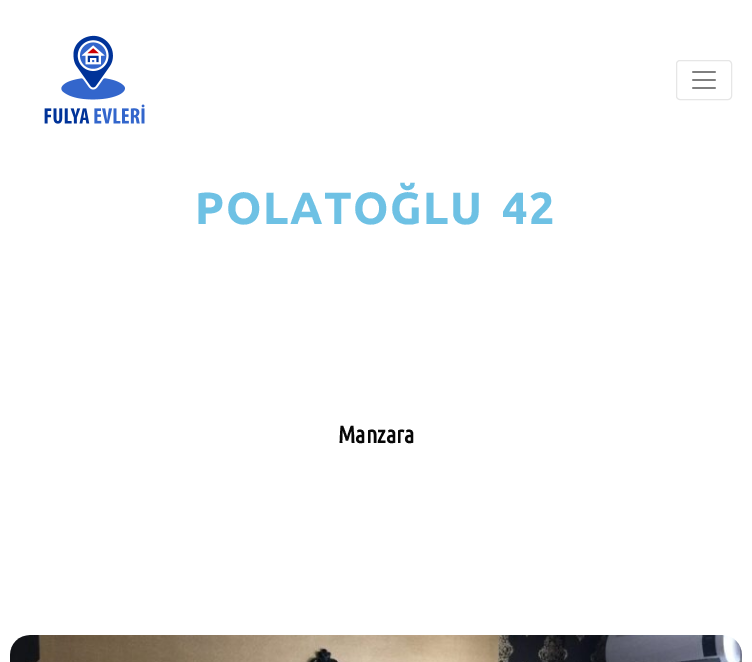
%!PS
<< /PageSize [752 662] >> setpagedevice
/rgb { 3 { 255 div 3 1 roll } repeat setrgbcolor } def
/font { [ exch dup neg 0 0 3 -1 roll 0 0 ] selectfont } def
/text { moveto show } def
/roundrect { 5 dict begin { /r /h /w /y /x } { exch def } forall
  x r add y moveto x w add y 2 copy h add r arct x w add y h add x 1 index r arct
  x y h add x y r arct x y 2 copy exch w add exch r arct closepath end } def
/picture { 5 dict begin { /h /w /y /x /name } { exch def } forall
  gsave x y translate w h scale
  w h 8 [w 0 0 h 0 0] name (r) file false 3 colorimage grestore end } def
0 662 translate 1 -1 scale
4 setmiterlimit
255 255 255 rgb
0 0 752 662 rectfill
(img_01.rgb) 44 35 101 89 picture
230 230 230 rgb
676.5 60.5 55 39 3.5 roundrect stroke
(img_02.rgb) 692 71 24 18 picture
(img_03.rgb) 10 635 732 27 picture
/Ubuntu-Bold 45 font
110 193 228 rgb
195 224 moveto 6 0 32 1.6 0 (POLATOĞLU 42) awidthshow
/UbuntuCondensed-Bold 24 font
7 7 7 rgb
(Manzara) 338 443 text
showpage
